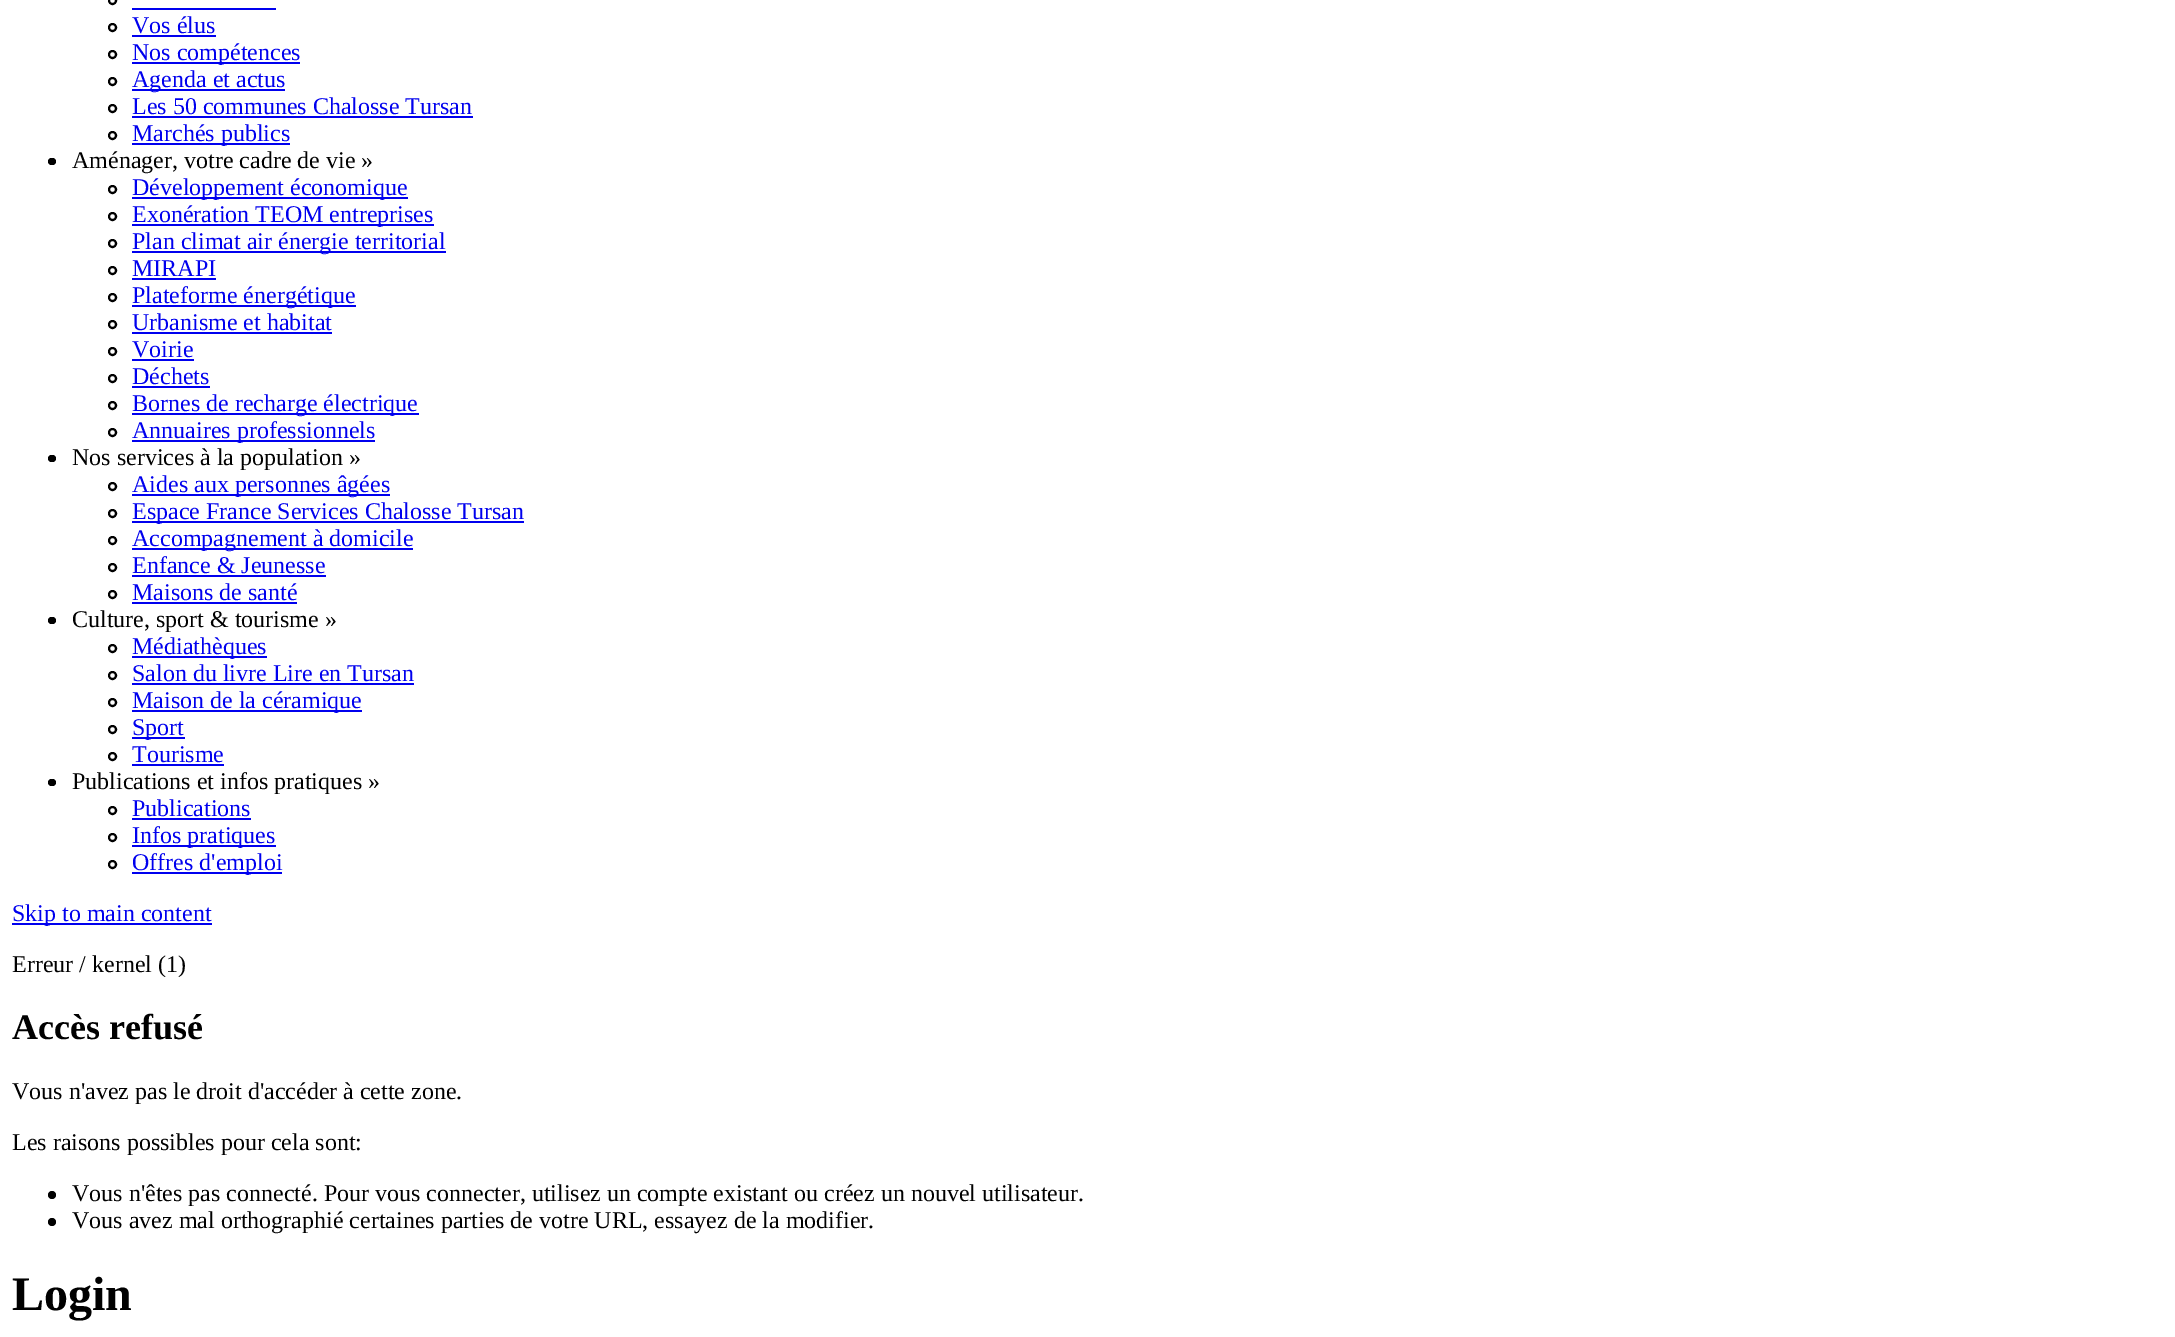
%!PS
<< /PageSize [2175 1337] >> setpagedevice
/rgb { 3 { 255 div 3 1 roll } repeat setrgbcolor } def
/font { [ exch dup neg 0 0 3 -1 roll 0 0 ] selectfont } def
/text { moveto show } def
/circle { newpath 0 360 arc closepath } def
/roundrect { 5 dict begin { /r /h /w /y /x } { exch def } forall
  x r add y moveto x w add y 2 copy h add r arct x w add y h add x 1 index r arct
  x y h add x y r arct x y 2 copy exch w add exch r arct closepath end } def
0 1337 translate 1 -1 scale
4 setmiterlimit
255 255 255 rgb
0 0 2175 1337 rectfill
0 0 0 rgb
2 setlinewidth
112.5 0.5 3.5 circle stroke
0 0 238 rgb
132 8 144 2 rectfill
0 0 0 rgb
112.5 27.5 3.5 circle stroke
0 0 238 rgb
132 35 84 2 rectfill
0 0 0 rgb
112.5 54.5 3.5 circle stroke
0 0 238 rgb
132 62 168 2 rectfill
0 0 0 rgb
112.5 81.5 3.5 circle stroke
0 0 238 rgb
132 89 153 2 rectfill
0 0 0 rgb
112.5 108.5 3.5 circle stroke
0 0 238 rgb
132 116 341 2 rectfill
0 0 0 rgb
112.5 135.5 3.5 circle stroke
0 0 238 rgb
132 143 158 2 rectfill
0 0 0 rgb
48 158 8 7 3.5 roundrect fill
112.5 189.5 3.5 circle stroke
0 0 238 rgb
132 197 276 2 rectfill
0 0 0 rgb
112.5 216.5 3.5 circle stroke
0 0 238 rgb
132 224 302 2 rectfill
0 0 0 rgb
112.5 243.5 3.5 circle stroke
0 0 238 rgb
132 251 314 2 rectfill
0 0 0 rgb
112.5 270.5 3.5 circle stroke
0 0 238 rgb
132 278 84 2 rectfill
0 0 0 rgb
112.5 297.5 3.5 circle stroke
0 0 238 rgb
132 305 224 2 rectfill
0 0 0 rgb
112.5 324.5 3.5 circle stroke
0 0 238 rgb
132 332 200 2 rectfill
0 0 0 rgb
112.5 351.5 3.5 circle stroke
0 0 238 rgb
132 359 62 2 rectfill
0 0 0 rgb
112.5 378.5 3.5 circle stroke
0 0 238 rgb
132 386 78 2 rectfill
0 0 0 rgb
112.5 405.5 3.5 circle stroke
0 0 238 rgb
132 413 287 2 rectfill
0 0 0 rgb
112.5 432.5 3.5 circle stroke
0 0 238 rgb
132 440 243 2 rectfill
0 0 0 rgb
48 455 8 7 3.5 roundrect fill
112.5 486.5 3.5 circle stroke
0 0 238 rgb
132 494 258 2 rectfill
0 0 0 rgb
112.5 513.5 3.5 circle stroke
0 0 238 rgb
132 521 392 2 rectfill
0 0 0 rgb
112.5 540.5 3.5 circle stroke
0 0 238 rgb
132 548 281 2 rectfill
0 0 0 rgb
112.5 567.5 3.5 circle stroke
0 0 238 rgb
132 575 194 2 rectfill
0 0 0 rgb
112.5 594.5 3.5 circle stroke
0 0 238 rgb
132 602 165 2 rectfill
0 0 0 rgb
48 617 8 7 3.5 roundrect fill
112.5 648.5 3.5 circle stroke
0 0 238 rgb
132 656 135 2 rectfill
0 0 0 rgb
112.5 675.5 3.5 circle stroke
0 0 238 rgb
132 683 282 2 rectfill
0 0 0 rgb
112.5 702.5 3.5 circle stroke
0 0 238 rgb
132 710 230 2 rectfill
0 0 0 rgb
112.5 729.5 3.5 circle stroke
0 0 238 rgb
132 737 53 2 rectfill
0 0 0 rgb
112.5 756.5 3.5 circle stroke
0 0 238 rgb
132 764 92 2 rectfill
0 0 0 rgb
48 779 8 7 3.5 roundrect fill
112.5 810.5 3.5 circle stroke
0 0 238 rgb
132 818 119 2 rectfill
0 0 0 rgb
112.5 837.5 3.5 circle stroke
0 0 238 rgb
132 845 144 2 rectfill
0 0 0 rgb
112.5 864.5 3.5 circle stroke
0 0 238 rgb
132 872 150 2 rectfill
12 923 200 2 rectfill
0 0 0 rgb
52 1195 4 circle fill
52 1222 4 circle fill
/LiberationSerif-Regular 24 font
0 0 238 rgb
(Vos élus) 132 33 text
(Nos compétences) 132 60 text
(Agenda et actus) 132 87 text
(Les 50 communes Chalosse Tursan) 132 114 text
(Marchés publics) 132 141 text
0 0 0 rgb
(Aménager, votre cadre de vie ») 72 168 text
0 0 238 rgb
(Développement économique) 132 195 text
(Exonération TEOM entreprises) 132 222 text
(Plan climat air énergie territorial) 132 249 text
(MIRAPI) 132 276 text
(Plateforme énergétique) 132 303 text
(Urbanisme et habitat) 132 330 text
(Voirie) 132 357 text
(Déchets) 132 384 text
(Bornes de recharge électrique) 132 411 text
(Annuaires professionnels) 132 438 text
0 0 0 rgb
(Nos services à la population ») 72 465 text
0 0 238 rgb
(Aides aux personnes âgées) 132 492 text
(Espace France Services Chalosse Tursan) 132 519 text
(Accompagnement à domicile) 132 546 text
(Enfance & Jeunesse) 132 573 text
(Maisons de santé) 132 600 text
0 0 0 rgb
(Culture, sport & tourisme ») 72 627 text
0 0 238 rgb
(Médiathèques) 132 654 text
(Salon du livre Lire en Tursan) 132 681 text
(Maison de la céramique) 132 708 text
(Sport) 132 735 text
(Tourisme) 132 762 text
0 0 0 rgb
(Publications et infos pratiques ») 72 789 text
0 0 238 rgb
(Publications) 132 816 text
(Infos pratiques) 132 843 text
(Offres d'emploi) 132 870 text
(Skip to main content) 12 921 text
0 0 0 rgb
(Erreur / kernel \(1\)) 12 972 text
/LiberationSerif-Bold 36 font
(Accès refusé) 12 1039 text
/LiberationSerif-Regular 24 font
(Vous n'avez pas le droit d'accéder à cette zone.) 12 1099 text
(Les raisons possibles pour cela sont:) 12 1150 text
(Vous n'êtes pas connecté. Pour vous connecter, utilisez un compte existant ou créez un nouvel utilisateur.) 72 1201 text
(Vous avez mal orthographié certaines parties de votre URL, essayez de la modifier.) 72 1228 text
/LiberationSerif-Bold 48 font
(Login) 12 1310 text
showpage
